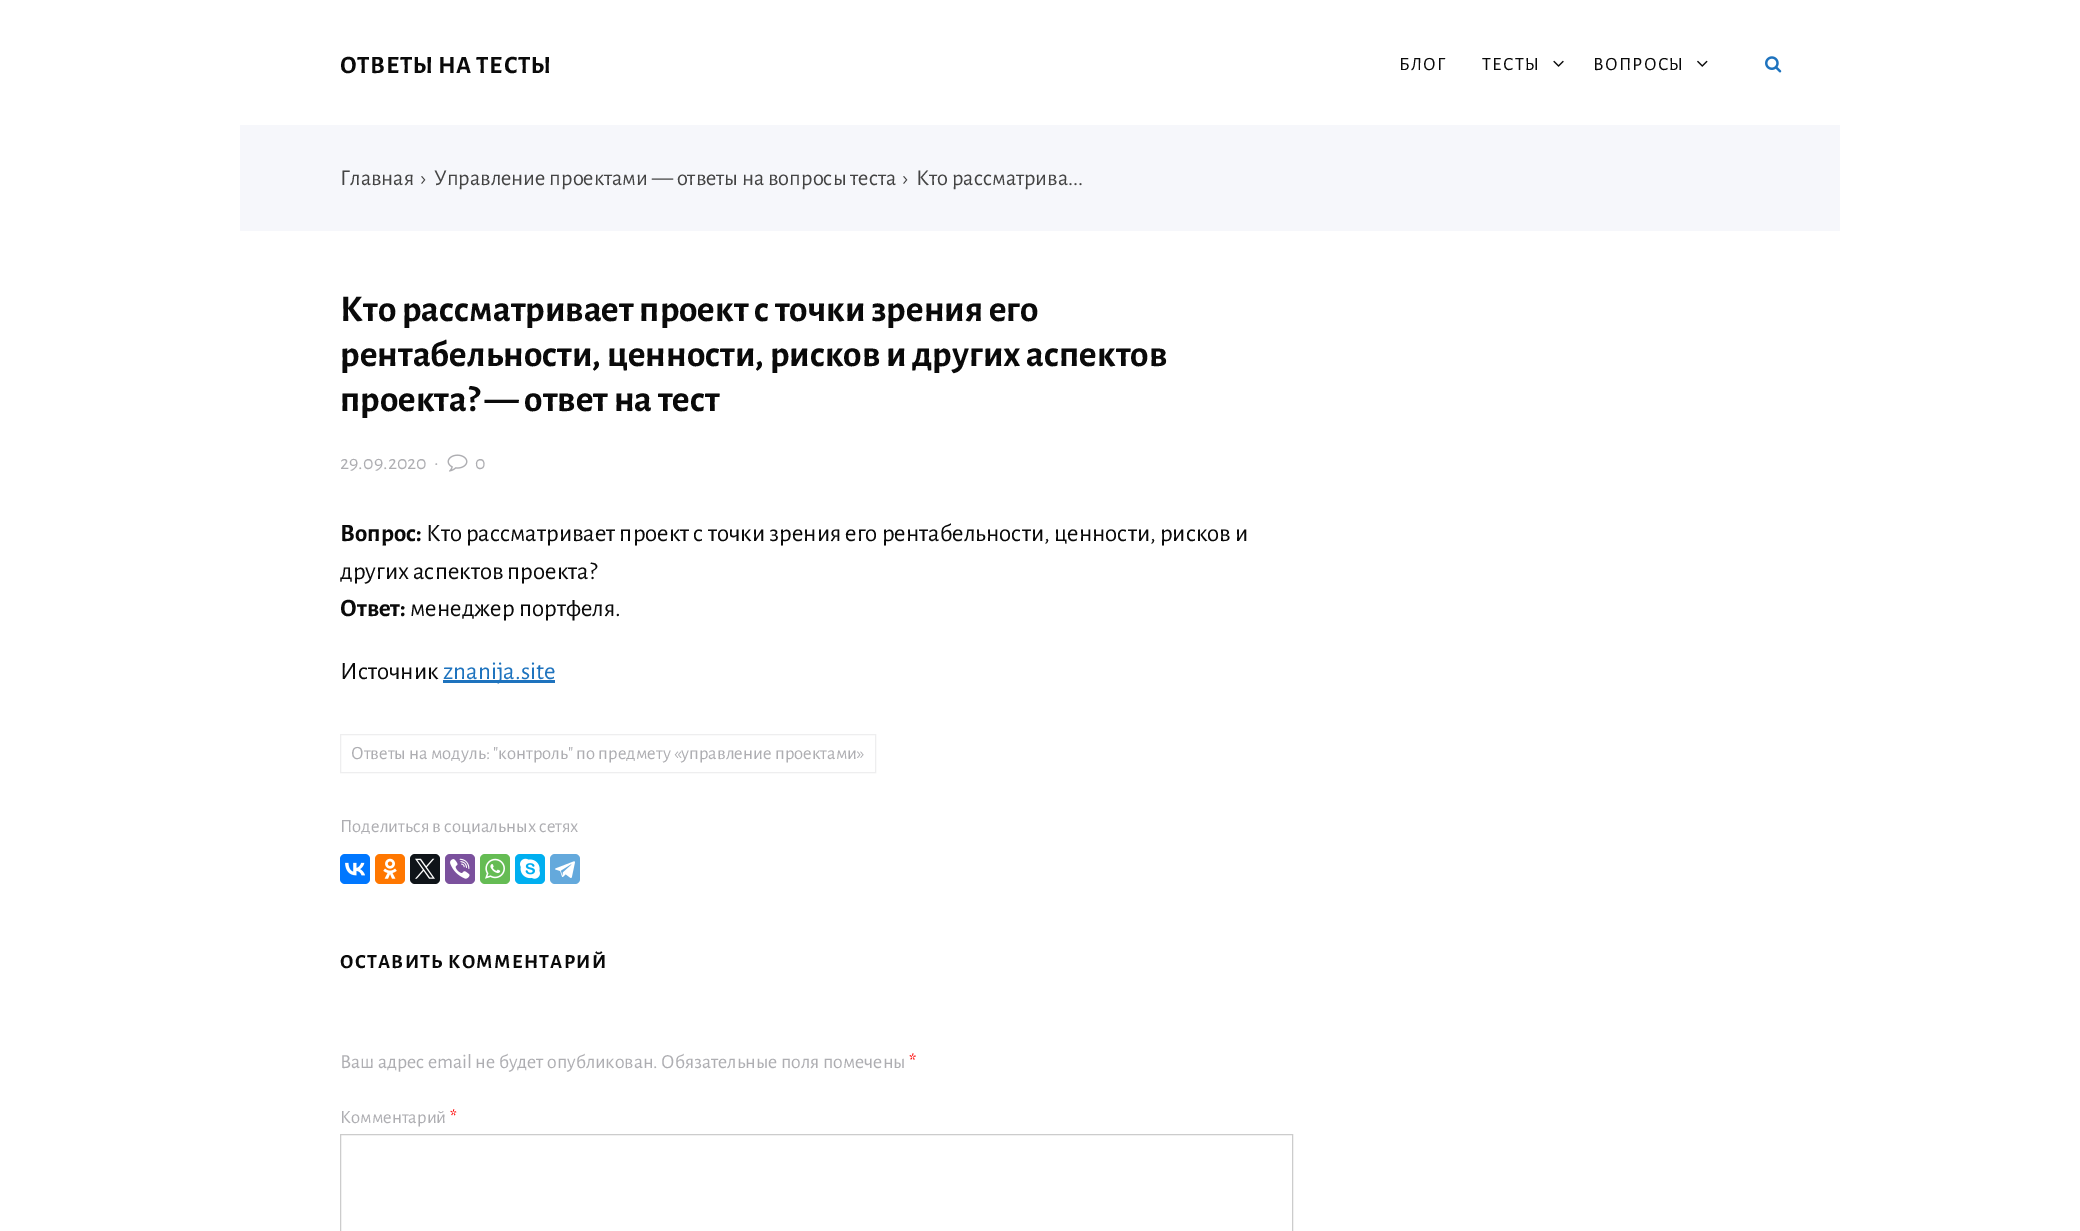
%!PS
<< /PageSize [2080 1231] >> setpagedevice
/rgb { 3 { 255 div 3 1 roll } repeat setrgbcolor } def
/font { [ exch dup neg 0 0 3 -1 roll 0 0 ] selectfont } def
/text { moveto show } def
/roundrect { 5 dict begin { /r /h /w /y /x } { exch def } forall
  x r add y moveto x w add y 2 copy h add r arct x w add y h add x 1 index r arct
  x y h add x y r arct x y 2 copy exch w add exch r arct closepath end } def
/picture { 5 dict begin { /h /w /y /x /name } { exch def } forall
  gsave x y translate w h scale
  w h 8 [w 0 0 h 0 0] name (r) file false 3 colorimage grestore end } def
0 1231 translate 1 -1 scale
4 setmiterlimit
255 255 255 rgb
0 0 2080 1231 rectfill
(img_01.rgb) 1553 60 11 7 picture
(img_02.rgb) 1697 60 11 7 picture
(img_03.rgb) 1765 56 17 17 picture
246 247 251 rgb
240 125 1600 106 rectfill
(img_04.rgb) 447 454 21 18 picture
30 115 190 rgb
443 680 112 3 rectfill
238 238 239 rgb
340.5 734.5 535 38 rectstroke
0 119 255 rgb
340 854 30 30 5 roundrect fill
(img_05.rgb) 345 862 20 14 picture
255 119 0 rgb
375 854 30 30 5 roundrect fill
(img_06.rgb) 383 858 14 21 picture
15 20 25 rgb
410 854 30 30 5 roundrect fill
(img_07.rgb) 415 858 20 21 picture
123 81 157 rgb
445 854 30 30 5 roundrect fill
(img_08.rgb) 450 858 20 21 picture
101 188 84 rgb
480 854 30 30 5 roundrect fill
(img_09.rgb) 485 858 20 21 picture
0 175 240 rgb
515 854 30 30 5 roundrect fill
(img_10.rgb) 520 858 20 21 picture
100 169 220 rgb
550 854 30 30 5 roundrect fill
(img_11.rgb) 555 861 20 17 picture
204 204 204 rgb
340.5 1134.5 952 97 rectstroke
/AlegreyaSans-Bold 25 font
10 10 10 rgb
340 73 moveto 0.6 0 (ОТВЕТЫ НА ТЕСТЫ) ashow
/AlegreyaSans-Regular 18.75 font
1399 70 moveto 1.25 0 (БЛОГ) ashow
1482 70 moveto 1.25 0 (ТЕСТЫ) ashow
1593 70 moveto 1.25 0 (ВОПРОСЫ) ashow
/AlegreyaSans-Regular 22.5 font
68 68 68 rgb
(Главная) 340 185 text
(›) 421 185 text
(Управление проектами — ответы на вопросы теста) 434 185 text
(›) 903 185 text
(Кто рассматрива...) 916 185 text
/AlegreyaSans-Bold 37.5 font
10 10 10 rgb
(Кто рассматривает проект с точки зрения его) 340 321 text
(рентабельности, ценности, рисков и других аспектов) 340 366 text
(проекта? — ответ на тест) 340 411 text
/AlegreyaSans-Regular 20 font
174 174 178 rgb
(29.09.2020) 340 469 text
(·) 434 469 text
(0) 475 469 text
/AlegreyaSans-Bold 25 font
10 10 10 rgb
(Вопрос:) 340 541 text
/AlegreyaSans-Regular 25 font
(Кто рассматривает проект с точки зрения его рентабельности, ценности, рисков и) 426 541 text
(других аспектов проекта?) 340 579 text
/AlegreyaSans-Bold 25 font
(Ответ:) 340 616 text
/AlegreyaSans-Regular 25 font
(менеджер портфеля.) 410 616 text
(Источник) 340 679 text
30 115 190 rgb
(znanija.site) 443 679 text
/AlegreyaSans-Regular 18.75 font
174 174 178 rgb
(Ответы на модуль: "контроль" по предмету «управление проектами») 351 759 text
(Поделиться в социальных сетях) 340 832 text
/AlegreyaSans-Bold 20 font
10 10 10 rgb
340 968 moveto 1.25 0 (ОСТАВИТЬ КОММЕНТАРИЙ) ashow
/AlegreyaSans-Regular 20 font
174 174 178 rgb
(Ваш адрес email не будет опубликован. Обязательные поля помечены) 340 1068 text
255 0 0 rgb
(*) 909 1068 text
/AlegreyaSans-Regular 18.75 font
174 174 178 rgb
(Комментарий) 340 1123 text
255 0 0 rgb
(*) 450 1123 text
showpage
